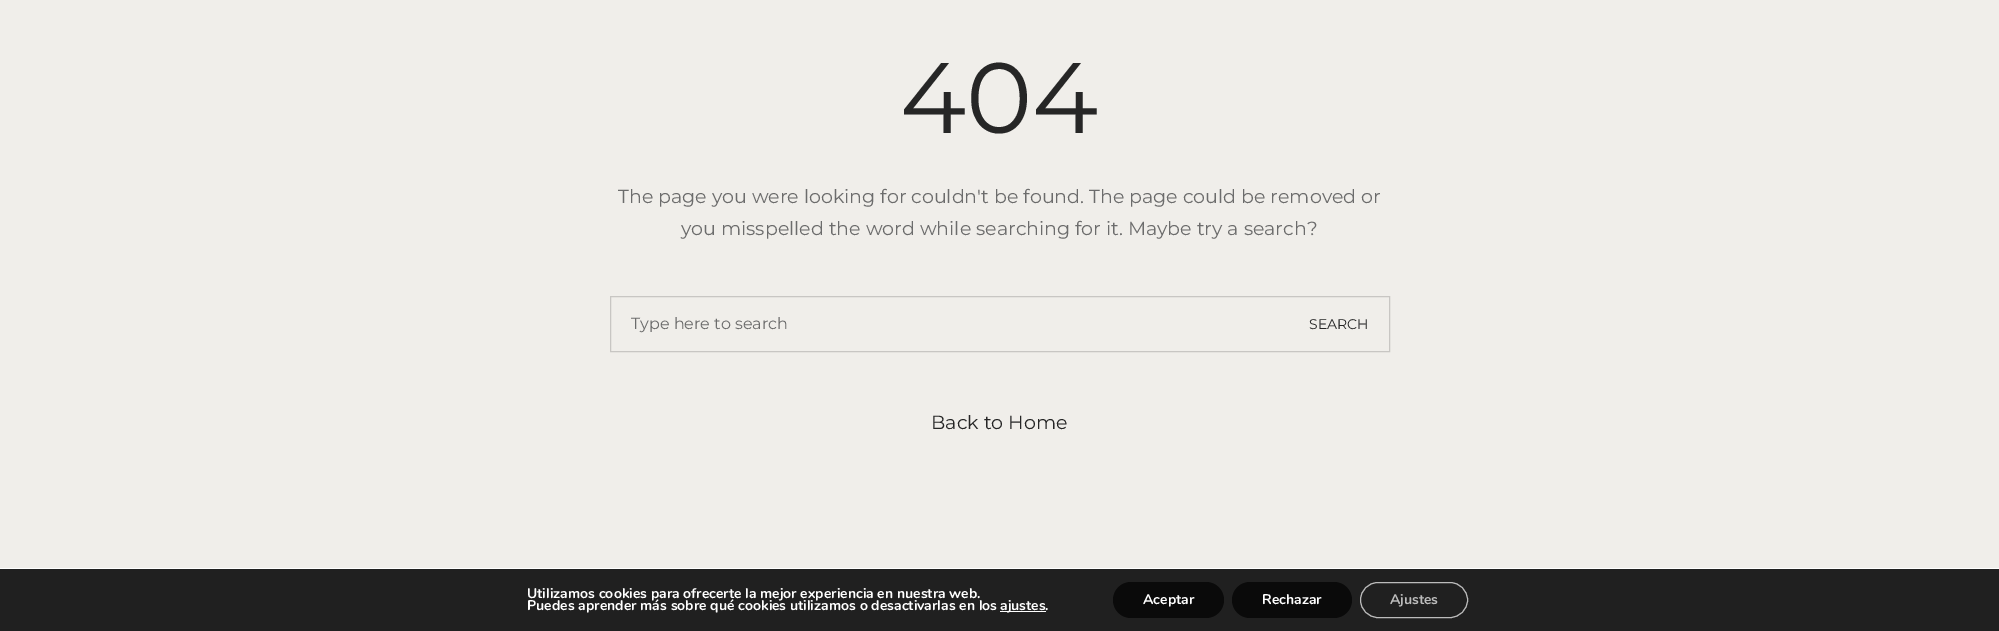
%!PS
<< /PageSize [1999 631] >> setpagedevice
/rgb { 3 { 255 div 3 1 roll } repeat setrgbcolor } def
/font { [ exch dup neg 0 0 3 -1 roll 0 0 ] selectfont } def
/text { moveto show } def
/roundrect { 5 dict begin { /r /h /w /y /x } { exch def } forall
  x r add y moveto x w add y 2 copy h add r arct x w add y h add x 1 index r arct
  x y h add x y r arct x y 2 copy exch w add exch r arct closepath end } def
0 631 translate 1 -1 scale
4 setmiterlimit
240 238 234 rgb
0 0 1999 631 rectfill
200 198 195 rgb
610.5 296.5 779 55 rectstroke
32 32 32 rgb
0 569 1999 62 rectfill
255 255 255 rgb
0 568 1999 1 rectfill
1000 611 46 1 rectfill
10 10 10 rgb
1113 582 111 36 18 roundrect fill
1232 582 120 36 18 roundrect fill
188 188 188 rgb
1360.5 582.5 107 35 17.5 roundrect stroke
/Montserrat-Regular 100 font
38 38 38 rgb
(404) 900 133 text
/Montserrat-Regular 19 font
108 108 108 rgb
(The page you were looking for couldn't be found. The page could be removed or) 618 203 text
(you misspelled the word while searching for it. Maybe try a search?) 681 235 text
/Montserrat-Regular 16 font
(Type here to search) 631 329 text
/Montserrat-Regular 14 font
38 38 38 rgb
(SEARCH) 1309 329 text
/Montserrat-Regular 19 font
(Back to Home) 931 429 text
/Nunito-Bold 14 font
255 255 255 rgb
(Utilizamos cookies para ofrecerte la mejor experiencia en nuestra web.) 527 598 text
(Puedes aprender más sobre qué cookies utilizamos o desactivarlas en los) 527 610 text
(ajustes.) 1000 610 text
(Aceptar) 1143 604 text
(Rechazar) 1262 604 text
188 188 188 rgb
(Ajustes) 1390 604 text
showpage
